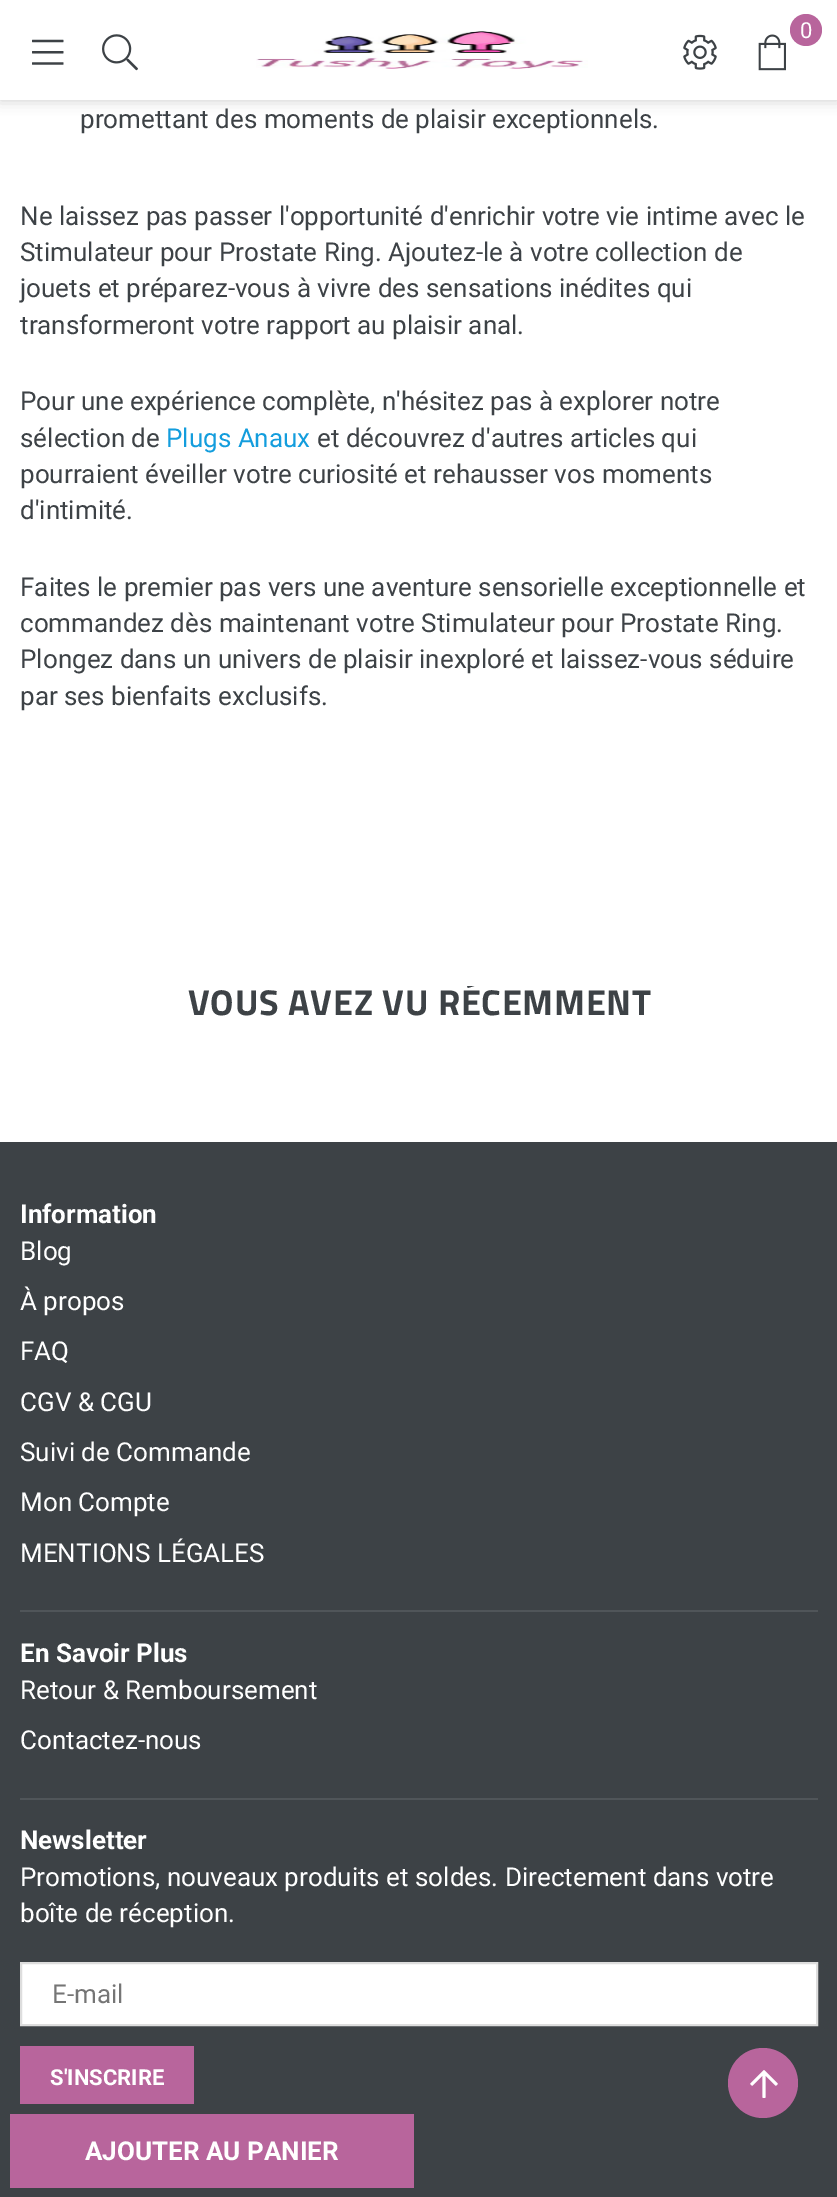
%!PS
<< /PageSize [837 2197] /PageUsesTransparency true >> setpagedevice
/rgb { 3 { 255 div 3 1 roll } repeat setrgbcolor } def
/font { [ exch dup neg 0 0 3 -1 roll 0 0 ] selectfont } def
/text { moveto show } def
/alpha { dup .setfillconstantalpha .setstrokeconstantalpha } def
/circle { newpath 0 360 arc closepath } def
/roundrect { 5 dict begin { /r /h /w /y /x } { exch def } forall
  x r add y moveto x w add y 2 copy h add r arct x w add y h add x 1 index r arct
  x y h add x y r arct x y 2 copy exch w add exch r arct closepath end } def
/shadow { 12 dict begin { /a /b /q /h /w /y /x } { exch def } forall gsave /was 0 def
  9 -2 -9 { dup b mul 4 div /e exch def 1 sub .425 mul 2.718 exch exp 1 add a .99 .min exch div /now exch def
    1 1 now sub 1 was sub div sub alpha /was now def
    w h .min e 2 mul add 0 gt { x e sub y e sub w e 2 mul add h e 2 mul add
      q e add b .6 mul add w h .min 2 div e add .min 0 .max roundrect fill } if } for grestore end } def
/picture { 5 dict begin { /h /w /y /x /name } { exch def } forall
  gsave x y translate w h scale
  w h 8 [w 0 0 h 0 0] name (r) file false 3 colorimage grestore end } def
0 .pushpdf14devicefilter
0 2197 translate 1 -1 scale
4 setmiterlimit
255 255 255 rgb
0 0 837 2197 rectfill
0 0 0 rgb
0 0 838 100 0 7 0.2 shadow
255 255 255 rgb
0 0 837 100 rectfill
(img_01.rgb) 32 39 32 26 picture
(img_02.rgb) 102 34 36 37 picture
(img_03.rgb) 256 31 332 38 picture
184 101 156 rgb
806 30 16 circle fill
(img_04.rgb) 758 34 28 37 picture
(img_05.rgb) 683 34 34 36 picture
61 66 70 rgb
0 1142 837 1055 rectfill
184 101 156 rgb
10 2114 404 74 rectfill
80 85 89 rgb
20 1610 798 2 rectfill
20 1798 798 2 rectfill
255 255 255 rgb
21 1963 moveto 796 0 rlineto 0 62 rlineto -796 0 rlineto closepath gsave fill grestore
221 221 221 rgb
2 setlinewidth
stroke
184 101 156 rgb
20 2046 174 58 rectfill
763 2083 35 circle fill
(img_06.rgb) 750 2070 28 28 picture
/Roboto-Regular 22 font
255 255 255 rgb
(0) 800 38 text
/Roboto-Regular 26 font
61 66 70 rgb
(promettant des moments de plaisir exceptionnels.) 80 128 text
(Ne laissez pas passer l'opportunité d'enrichir votre vie intime avec le) 20 225 text
(Stimulateur pour Prostate Ring. Ajoutez-le à votre collection de) 20 261 text
(jouets et préparez-vous à vivre des sensations inédites qui) 20 297 text
(transformeront votre rapport au plaisir anal.) 20 334 text
(Pour une expérience complète, n'hésitez pas à explorer notre) 20 410 text
(sélection de) 20 447 text
19 157 221 rgb
(Plugs Anaux) 166 447 text
61 66 70 rgb
(et découvrez d'autres articles qui) 317 447 text
(pourraient éveiller votre curiosité et rehausser vos moments) 20 483 text
(d'intimité.) 20 519 text
(Faites le premier pas vers une aventure sensorielle exceptionnelle et) 20 596 text
(commandez dès maintenant votre Stimulateur pour Prostate Ring.) 20 632 text
(Plongez dans un univers de plaisir inexploré et laissez-vous séduire) 20 668 text
(par ses bienfaits exclusifs.) 20 705 text
/Roboto-Bold 26 font
255 255 255 rgb
(AJOUTER AU PANIER) 85 2160 text
gsave
20 986 798 116 rectclip
/TitilliumWeb-Bold 36 font
61 66 70 rgb
188 1015 moveto 0.75 0 (VOUS AVEZ VU RÉCEMMENT) ashow
grestore
(Information) 20 1223 text
/Roboto-Regular 26 font
(Blog) 20 1260 text
(À propos) 20 1310 text
(FAQ) 20 1360 text
(CGV & CGU) 20 1411 text
(Suivi de Commande) 20 1461 text
(Mon Compte) 20 1511 text
(MENTIONS LÉGALES) 20 1562 text
/Roboto-Bold 26 font
(En Savoir Plus) 20 1662 text
/Roboto-Regular 26 font
(Retour & Remboursement) 20 1699 text
(Contactez-nous) 20 1749 text
/Roboto-Bold 26 font
(Newsletter) 20 1849 text
/Roboto-Regular 26 font
(Promotions, nouveaux produits et soldes. Directement dans votre) 20 1886 text
(boîte de réception.) 20 1922 text
117 117 117 rgb
(E-mail) 52 2003 text
/Roboto-Bold 22 font
255 255 255 rgb
(S'INSCRIRE) 50 2085 text
.poppdf14devicefilter showpage
